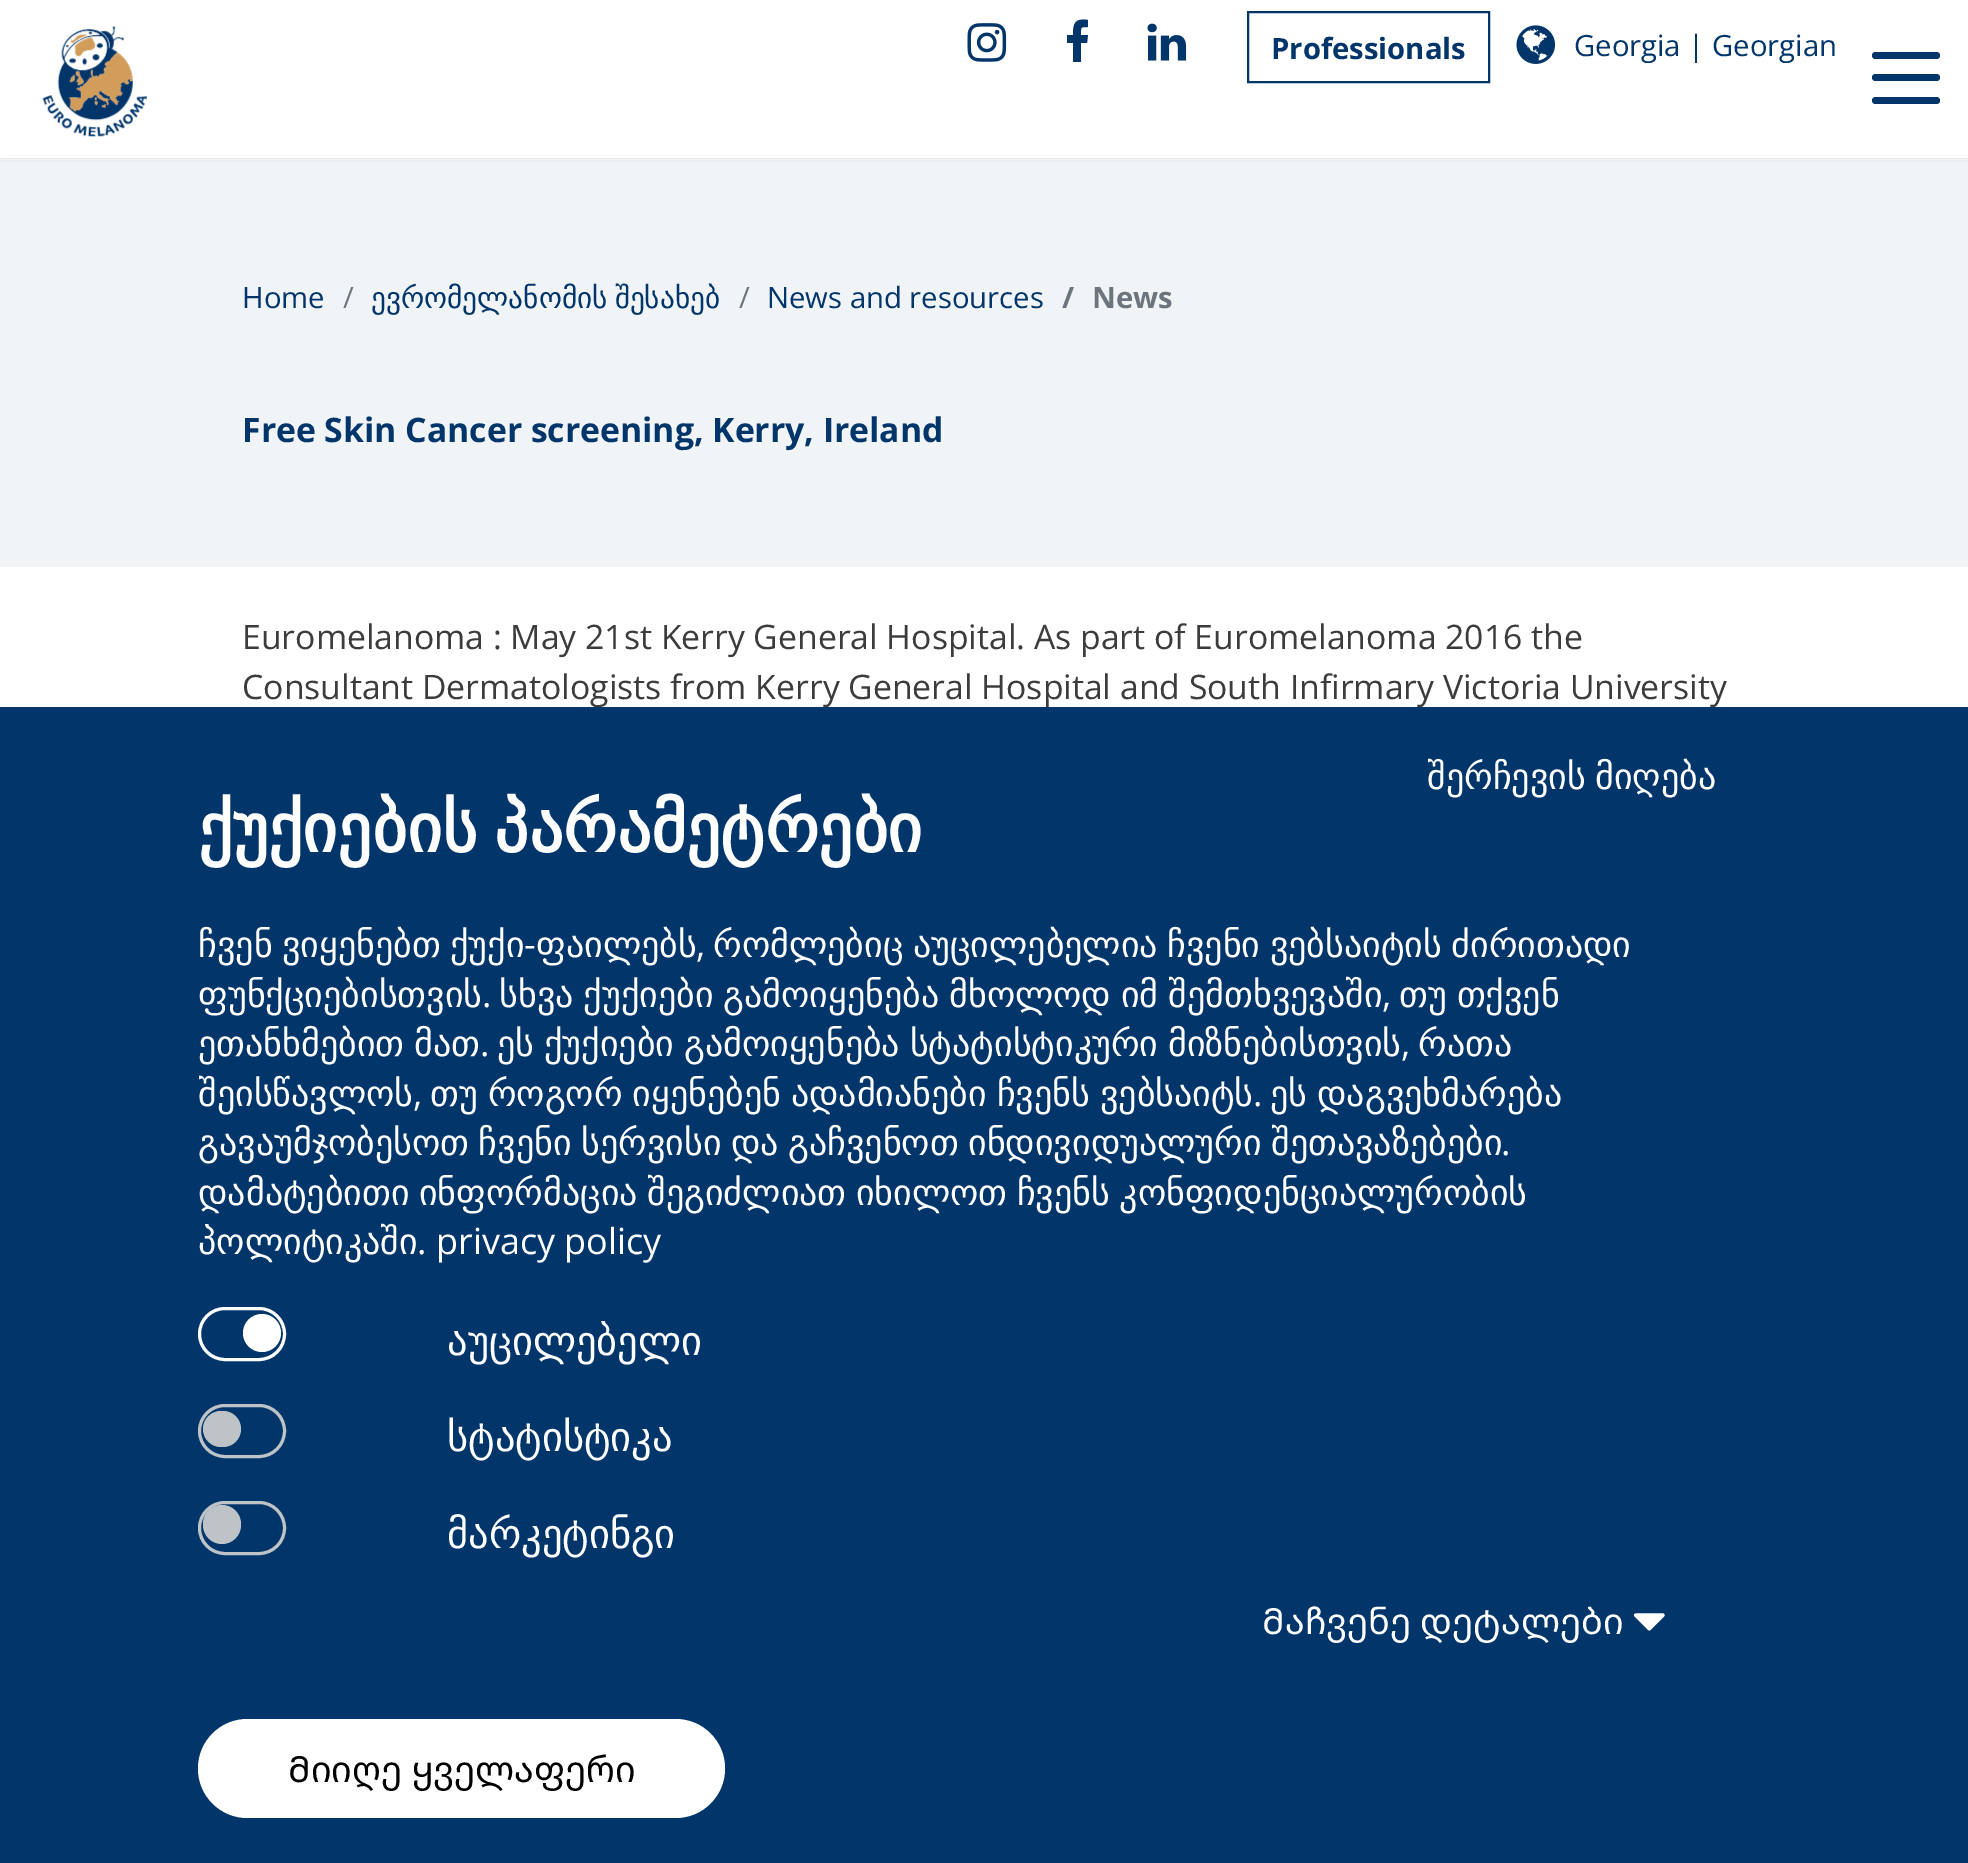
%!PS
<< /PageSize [1968 1863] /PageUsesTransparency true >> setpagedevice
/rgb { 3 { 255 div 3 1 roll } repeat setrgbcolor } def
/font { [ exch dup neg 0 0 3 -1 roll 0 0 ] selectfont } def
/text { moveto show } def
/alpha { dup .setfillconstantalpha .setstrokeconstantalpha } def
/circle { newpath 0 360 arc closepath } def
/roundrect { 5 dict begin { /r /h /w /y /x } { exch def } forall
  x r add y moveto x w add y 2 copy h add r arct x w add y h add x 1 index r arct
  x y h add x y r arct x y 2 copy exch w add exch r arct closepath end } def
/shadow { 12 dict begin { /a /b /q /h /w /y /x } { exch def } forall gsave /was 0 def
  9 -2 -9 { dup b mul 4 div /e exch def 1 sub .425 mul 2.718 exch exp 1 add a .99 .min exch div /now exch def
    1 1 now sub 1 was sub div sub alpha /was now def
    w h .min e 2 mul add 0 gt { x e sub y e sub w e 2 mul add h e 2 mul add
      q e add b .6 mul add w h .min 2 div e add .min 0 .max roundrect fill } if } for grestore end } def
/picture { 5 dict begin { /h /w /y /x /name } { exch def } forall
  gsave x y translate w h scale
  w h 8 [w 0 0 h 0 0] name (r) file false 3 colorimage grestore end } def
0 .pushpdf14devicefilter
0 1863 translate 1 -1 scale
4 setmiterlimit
255 255 255 rgb
0 0 1968 1863 rectfill
241 244 247 rgb
0 160 1968 407 rectfill
0 0 0 rgb
0 0 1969 158 0 2 0.2 shadow
255 255 255 rgb
0 0 1968 158 rectfill
(img_01.rgb) 42 26 105 112 picture
(img_02.rgb) 967 23 40 39 picture
2 53 106 rgb
1088 20 moveto -13 -2 -15 3 -15 15 rcurveto -6 0 rlineto 0 8 rlineto 6 0 rlineto 0 19 rlineto 8 0 rlineto 0 -19 rlineto 6 0 rlineto 1 -8 rlineto -7 0 rlineto 0 -8 -1 -8 7 -8 rcurveto closepath fill
(img_03.rgb) 1147 23 40 38 picture
2 setlinewidth
1248 12 241 70 rectstroke
(img_04.rgb) 1516 25 40 39 picture
1872 74 68 7 3.5 roundrect fill
1872 52 68 7 3.5 roundrect fill
1872 97 68 7 3.5 roundrect fill
/OpenSans-Bold 29.25 font
(Professionals) 1271 59 text
/OpenSans-Regular 29.25 font
(Georgia | Georgian) 1574 56 text
(Home) 242 308 text
108 117 125 rgb
(/) 343 308 text
/DejaVuSans-Regular 29.25 font
2 53 106 rgb
371 308 moveto -2 0 32 (ევრომელანომის შესახებ) widthshow
/OpenSans-Regular 29.25 font
108 117 125 rgb
(/) 739 308 text
2 53 106 rgb
(News and resources) 767 308 text
/OpenSans-Bold 29.25 font
108 117 125 rgb
(/) 1062 308 text
(News) 1092 308 text
/OpenSans-Bold 33.75 font
2 53 106 rgb
(Free Skin Cancer screening, Kerry, Ireland) 242 442 text
/OpenSans-Regular 33.75 font
60 60 60 rgb
(Euromelanoma : May 21st Kerry General Hospital. As part of Euromelanoma 2016 the) 242 649 text
(Consultant Dermatologists from Kerry General Hospital and South Infirmary Victoria University) 242 699 text
2 53 106 rgb
0 707 1968 1156 rectfill
/DejaVuSans-Regular 36 font
255 255 255 rgb
1427 789 moveto -2 0 32 (შერჩევის მიღება) widthshow
/DejaVuSans-Bold 67.5 font
198 852 moveto -4 0 32 (ქუქიების პარამეტრები) widthshow
/DejaVuSans-Regular 36 font
198 957 moveto -2 0 32 (ჩვენ ვიყენებთ ქუქი) widthshow
/OpenSans-Regular 36 font
(-) 524 957 text
/DejaVuSans-Regular 36 font
(ფაილებს) 536 957 text
713 957 moveto -2 0 32 (რომლებიც აუცილებელია ჩვენი ვებსაიტის ძირითადი) widthshow
/OpenSans-Regular 36 font
(,) 696 957 text
/DejaVuSans-Regular 36 font
(ფუნქციებისთვის) 198 1007 text
/OpenSans-Regular 36 font
(.) 482 1007 text
/DejaVuSans-Regular 36 font
499 1007 moveto -1.5 0 32 (სხვა ქუქიები გამოიყენება მხოლოდ იმ შემთხვევაში) widthshow
/OpenSans-Regular 36 font
(,) 1382 1007 text
/DejaVuSans-Regular 36 font
1399 1007 moveto -1.5 0 32 (თუ თქვენ) widthshow
198 1056 moveto -1.5 0 32 (ეთანხმებით მათ) widthshow
/OpenSans-Regular 36 font
(.) 480 1056 text
/DejaVuSans-Regular 36 font
497 1056 moveto -1.5 0 32 (ეს ქუქიები გამოიყენება სტატისტიკური მიზნებისთვის) widthshow
/OpenSans-Regular 36 font
(,) 1401 1056 text
/DejaVuSans-Regular 36 font
(რათა) 1418 1056 text
(შეისწავლოს) 198 1106 text
/OpenSans-Regular 36 font
(,) 413 1106 text
/DejaVuSans-Regular 36 font
430 1106 moveto -1.5 0 32 (თუ როგორ იყენებენ ადამიანები ჩვენს ვებსაიტს) widthshow
/OpenSans-Regular 36 font
(.) 1253 1106 text
/DejaVuSans-Regular 36 font
1270 1106 moveto -1.5 0 32 (ეს დაგვეხმარება) widthshow
198 1155 moveto -2 0 32 (გავაუმჯობესოთ ჩვენი სერვისი და გაჩვენოთ ინდივიდუალური შეთავაზებები) widthshow
/OpenSans-Regular 36 font
(.) 1501 1155 text
/DejaVuSans-Regular 36 font
198 1205 moveto -2 0 32 (დამატებითი ინფორმაცია შეგიძლიათ იხილოთ ჩვენს კონფიდენციალურობის) widthshow
(პოლიტიკაში) 198 1254 text
/OpenSans-Regular 36 font
(. privacy policy) 417 1254 text
3 setlinewidth
199.5 1308.5 85 51 25.5 roundrect stroke
262 1333 19 circle fill
/DejaVuSans-Regular 40.5 font
(აუცილებელი) 447 1355 text
189 195 199 rgb
199.5 1405.5 85 51 25.5 roundrect stroke
203 1411 38 36 18 roundrect fill
255 255 255 rgb
(სტატისტიკა) 447 1451 text
189 195 199 rgb
199.5 1502.5 85 51 25.5 roundrect stroke
203 1505 38 39 19 roundrect fill
255 255 255 rgb
(მარკეტინგი) 447 1548 text
/NotoSansGeorgian-Regular 36 font
(Მაჩვენე დეტალები) 1262 1634 text
(img_05.rgb) 1633 1613 32 18 picture
198 1719 527 99 49.5 roundrect fill
0 0 0 rgb
(Მიიღე ყველაფერი) 288 1782 text
.poppdf14devicefilter showpage
